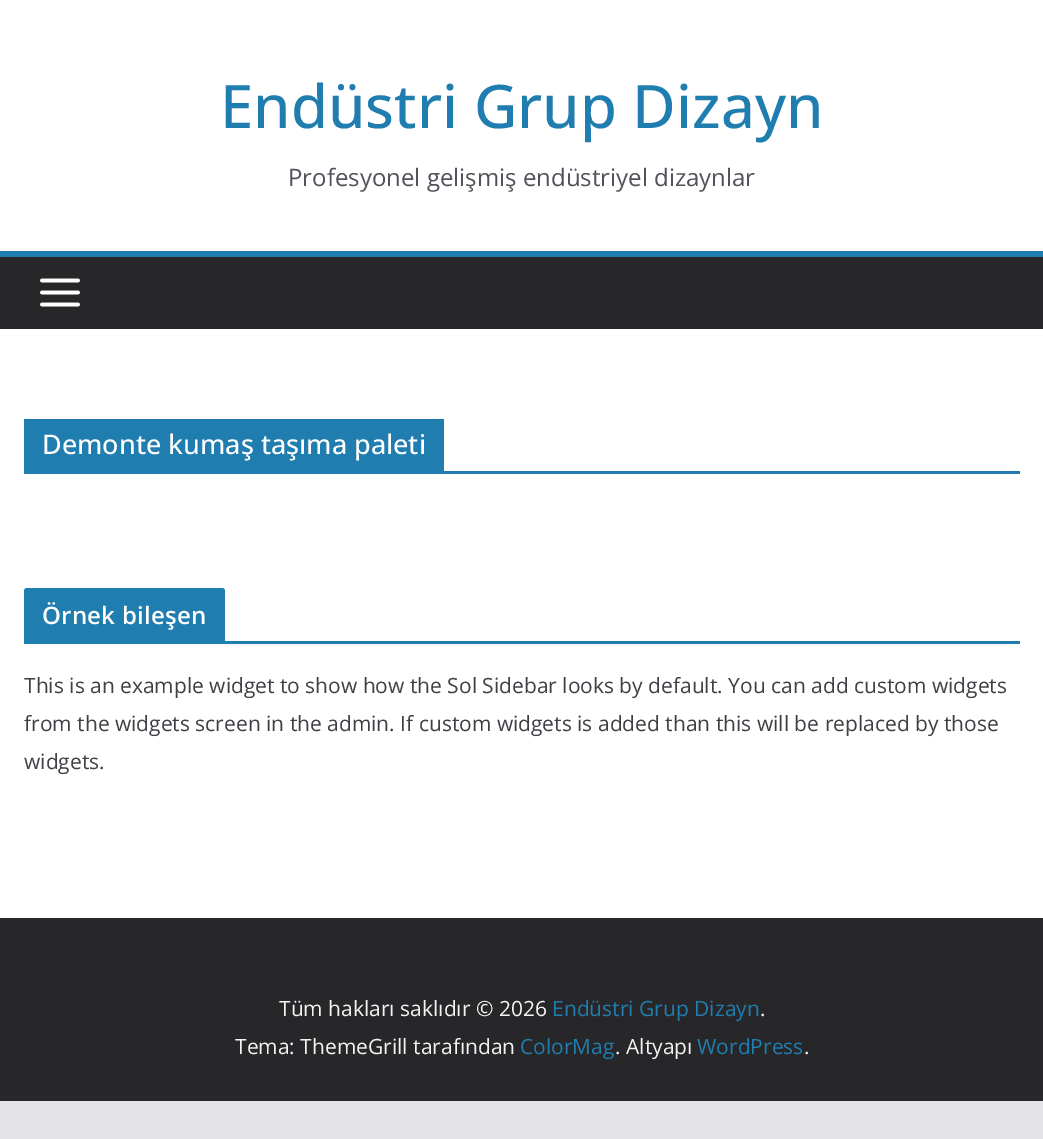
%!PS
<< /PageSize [1043 1139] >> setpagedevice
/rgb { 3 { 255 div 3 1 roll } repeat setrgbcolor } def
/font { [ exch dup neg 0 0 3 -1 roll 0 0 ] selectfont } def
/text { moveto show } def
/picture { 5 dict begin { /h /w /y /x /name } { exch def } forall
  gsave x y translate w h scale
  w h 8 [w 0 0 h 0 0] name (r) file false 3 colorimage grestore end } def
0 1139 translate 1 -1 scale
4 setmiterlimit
228 228 231 rgb
0 0 1043 1139 rectfill
255 255 255 rgb
0 0 1043 251 rectfill
39 39 42 rgb
0 257 1043 72 rectfill
32 125 175 rgb
0 251 1043 6 rectfill
(img_01.rgb) 40 278 40 29 picture
255 255 255 rgb
0 329 1043 589 rectfill
32 125 175 rgb
24 471 996 3 rectfill
24 419 420 52 rectfill
24 641 996 3 rectfill
27 588 moveto 195 0 rlineto 1.5 0 3 1.5 3 3 rcurveto 0 50 rlineto -201 0 rlineto 0 -50 rlineto 0 -1.5 1.5 -3 3 -3 rcurveto closepath fill
39 39 42 rgb
0 918 1043 183 rectfill
/OpenSans-Medium 60 font
32 125 175 rgb
(Endüstri Grup Dizayn) 220 128 text
/OpenSans-Regular 24 font
82 82 91 rgb
(Profesyonel gelişmiş endüstriyel dizaynlar) 288 186 text
/OpenSans-Medium 27 font
255 255 255 rgb
(Demonte kumaş taşıma paleti) 42 454 text
/OpenSans-SemiBold 24 font
42 624 moveto 0.25 0 (Örnek bileşen) ashow
/OpenSans-Regular 21 font
63 63 70 rgb
(This is an example widget to show how the Sol Sidebar looks by default. You can add custom widgets) 24 693 text
(from the widgets screen in the admin. If custom widgets is added than this will be replaced by those) 24 731 text
(widgets.) 24 769 text
244 244 245 rgb
(Tüm hakları saklıdır © 2026) 279 1016 text
32 125 175 rgb
(Endüstri Grup Dizayn) 552 1016 text
244 244 245 rgb
(.) 760 1016 text
(Tema: ThemeGrill tarafından) 235 1054 text
32 125 175 rgb
(ColorMag) 520 1054 text
244 244 245 rgb
(. Altyapı) 615 1054 text
32 125 175 rgb
(WordPress) 697 1054 text
244 244 245 rgb
(.) 804 1054 text
showpage
